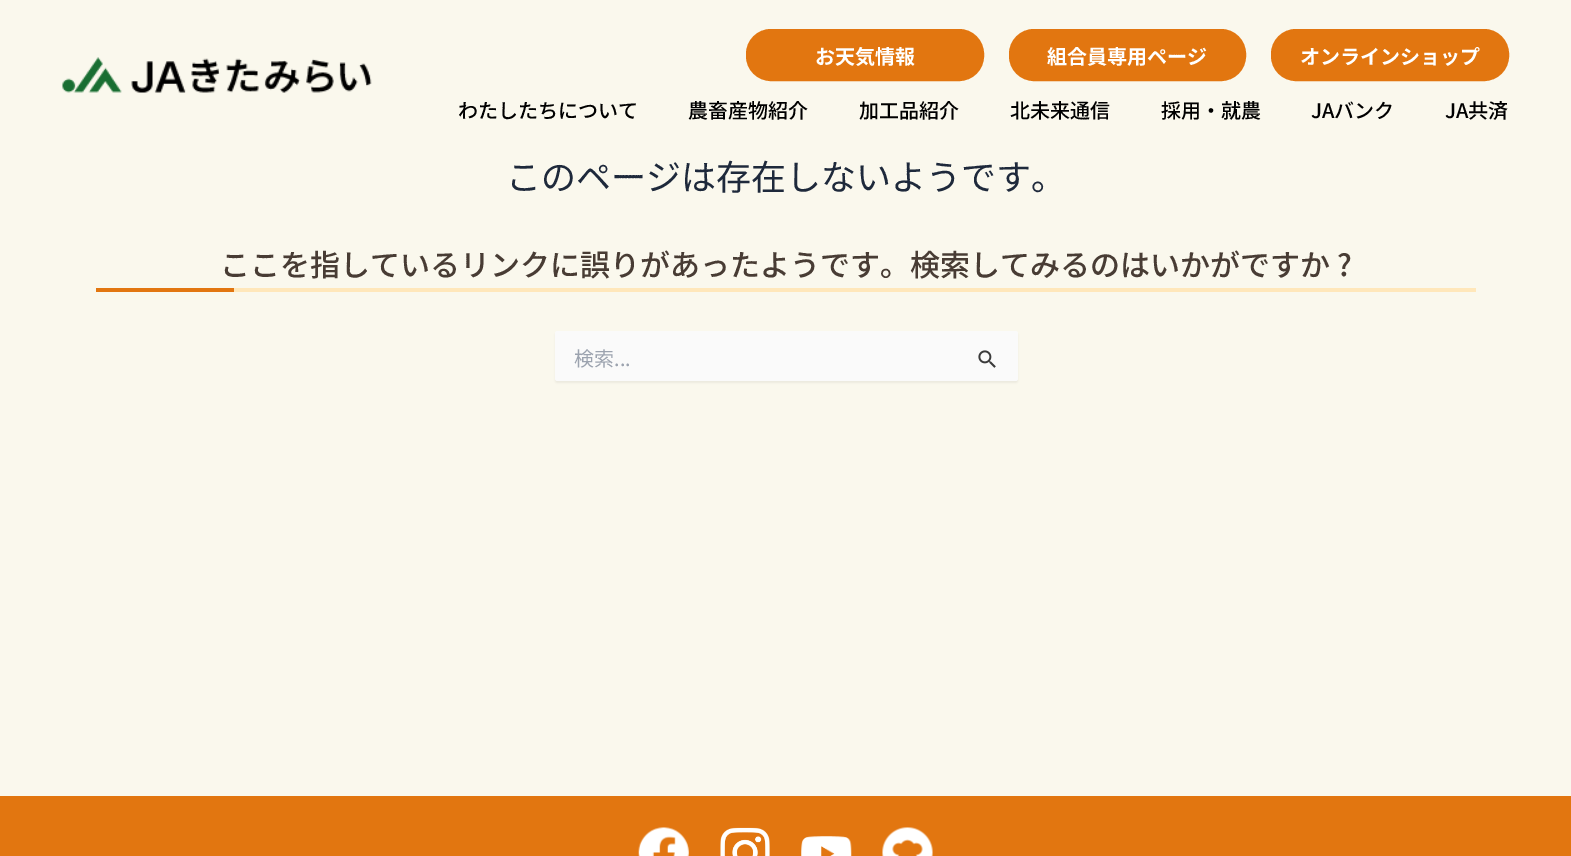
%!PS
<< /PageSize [1571 856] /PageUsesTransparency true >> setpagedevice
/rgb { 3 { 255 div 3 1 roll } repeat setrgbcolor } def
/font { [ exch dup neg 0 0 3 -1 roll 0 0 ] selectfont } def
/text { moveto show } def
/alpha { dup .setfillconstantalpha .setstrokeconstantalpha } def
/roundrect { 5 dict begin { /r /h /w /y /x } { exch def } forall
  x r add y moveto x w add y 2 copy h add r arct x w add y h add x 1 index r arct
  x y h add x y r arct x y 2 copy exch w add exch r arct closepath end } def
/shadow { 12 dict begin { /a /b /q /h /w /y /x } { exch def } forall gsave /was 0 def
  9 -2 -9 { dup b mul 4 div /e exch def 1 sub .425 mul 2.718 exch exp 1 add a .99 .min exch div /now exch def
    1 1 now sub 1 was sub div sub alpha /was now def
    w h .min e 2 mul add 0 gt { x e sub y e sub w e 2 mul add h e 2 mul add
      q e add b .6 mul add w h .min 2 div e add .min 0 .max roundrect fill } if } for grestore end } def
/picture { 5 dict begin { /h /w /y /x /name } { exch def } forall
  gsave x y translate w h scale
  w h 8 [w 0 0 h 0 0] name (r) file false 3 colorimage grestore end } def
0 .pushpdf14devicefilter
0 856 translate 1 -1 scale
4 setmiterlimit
250 248 237 rgb
0 0 1571 856 rectfill
(img_01.rgb) 62 57 310 36 picture
226 118 16 rgb
747.5 30.5 235 49 23.5 roundrect gsave fill grestore
3 setlinewidth
stroke
1010.5 30.5 234 49 23.5 roundrect gsave fill grestore
stroke
1272.5 30.5 235 49 23.5 roundrect gsave fill grestore
stroke
255 231 186 rgb
234 288 1242 4 rectfill
226 118 16 rgb
96 288 138 4 rectfill
0 0 0 rgb
555 333 463 50 2.5 1 0.05 shadow
250 250 250 rgb
555 331 463 50 2.5 roundrect fill
(img_02.rgb) 978 350 18 18 picture
226 118 16 rgb
0 796 1571 60 rectfill
(img_03.rgb) 638 827 51 29 picture
(img_04.rgb) 720 827 50 29 picture
(img_05.rgb) 801 836 51 20 picture
(img_06.rgb) 882 827 51 29 picture
/NotoSansJP-Bold 20 font
255 255 255 rgb
(お天気情報) 815 64 text
(組合員専用ページ) 1047 64 text
(オンラインショップ) 1300 64 text
/NotoSansJP-Medium 20 font
0 0 0 rgb
(わたしたちについて) 458 118 text
(農畜産物紹介) 688 118 text
(加工品紹介) 859 118 text
(北未来通信) 1010 118 text
(採用・就農) 1161 118 text
(JAバンク) 1311 118 text
(JA共済) 1445 118 text
/NotoSansJP-Regular 35 font
30 41 59 rgb
(このページは存在しないようです。) 506 190 text
/NotoSansJP-Medium 30 font
72 60 52 rgb
(ここを指しているリンクに誤りがあったようです。検索してみるのはいかがですか ?) 220 276 text
/NotoSansJP-Regular 20 font
156 163 175 rgb
(検索...) 574 366 text
.poppdf14devicefilter showpage
